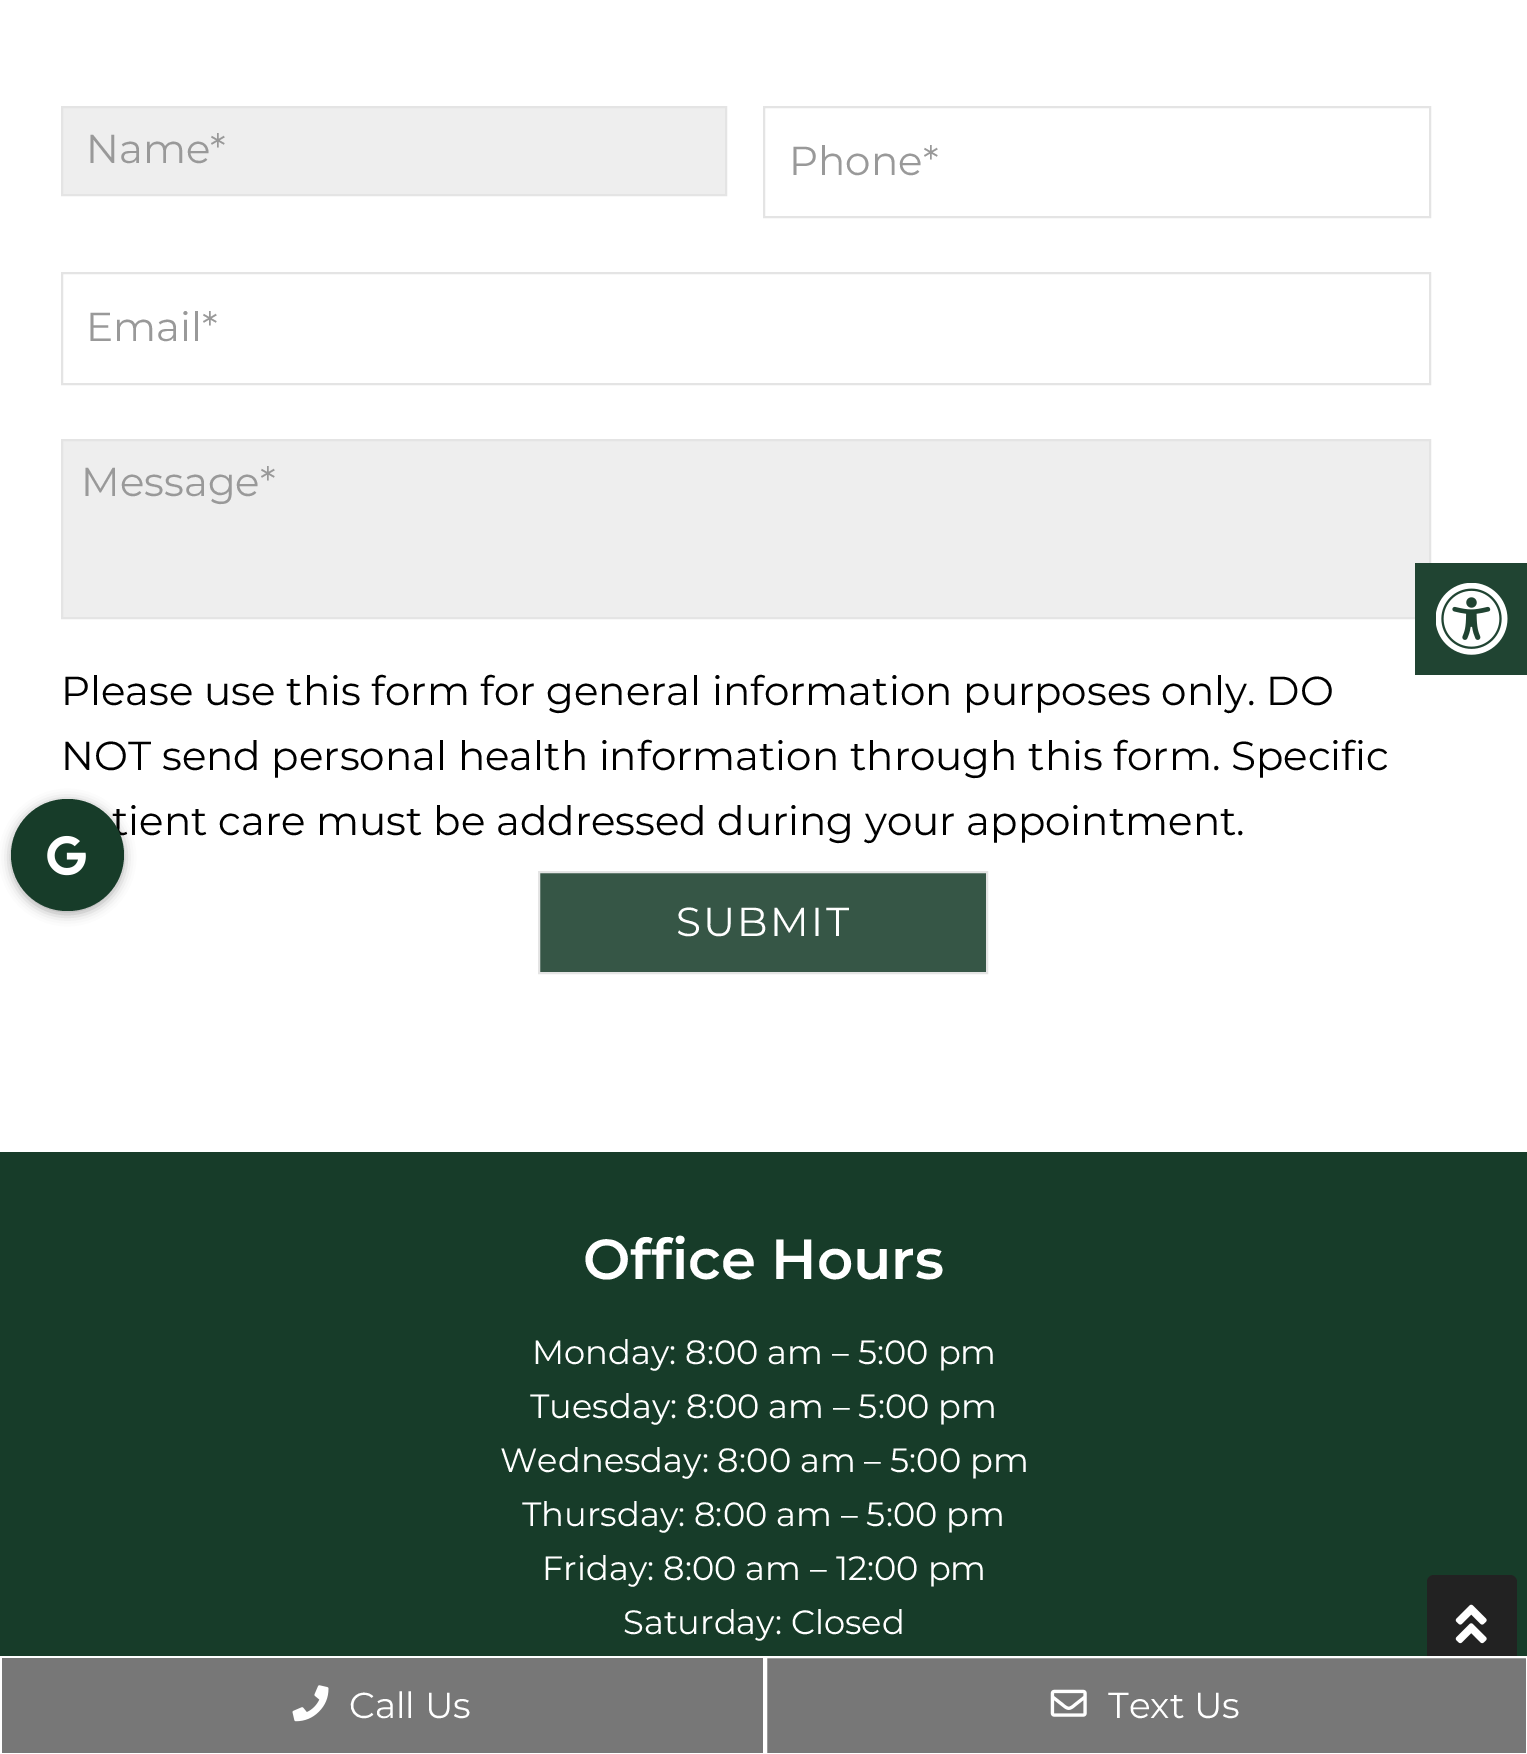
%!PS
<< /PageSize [1527 1754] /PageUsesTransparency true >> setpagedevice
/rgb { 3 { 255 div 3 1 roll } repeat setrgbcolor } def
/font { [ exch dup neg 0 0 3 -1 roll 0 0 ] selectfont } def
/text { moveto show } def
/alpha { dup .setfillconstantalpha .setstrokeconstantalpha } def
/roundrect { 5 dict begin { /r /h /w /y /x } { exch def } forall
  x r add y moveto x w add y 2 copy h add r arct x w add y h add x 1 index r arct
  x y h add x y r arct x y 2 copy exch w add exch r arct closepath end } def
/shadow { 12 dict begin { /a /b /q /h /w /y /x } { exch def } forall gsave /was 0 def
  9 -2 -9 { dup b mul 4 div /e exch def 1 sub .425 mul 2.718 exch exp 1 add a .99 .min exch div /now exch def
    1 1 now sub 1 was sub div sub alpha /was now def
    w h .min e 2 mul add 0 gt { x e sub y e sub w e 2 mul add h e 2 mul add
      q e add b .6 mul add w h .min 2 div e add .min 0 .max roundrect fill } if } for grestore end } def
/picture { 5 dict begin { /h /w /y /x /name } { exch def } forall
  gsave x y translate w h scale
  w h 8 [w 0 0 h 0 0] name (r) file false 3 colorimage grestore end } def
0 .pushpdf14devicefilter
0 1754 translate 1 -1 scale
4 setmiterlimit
255 255 255 rgb
0 0 1527 1754 rectfill
238 238 238 rgb
62 107 moveto 664 0 rlineto 0 88 rlineto -664 0 rlineto closepath gsave fill grestore
228 228 228 rgb
2 setlinewidth
stroke
764 107 666 110 rectstroke
62 273 1368 111 rectstroke
238 238 238 rgb
62 440 moveto 1368 0 rlineto 0 178 rlineto -1368 0 rlineto closepath gsave fill grestore
228 228 228 rgb
stroke
54 86 70 rgb
539 872 moveto 448 0 rlineto 0 101 rlineto -448 0 rlineto closepath gsave fill grestore
228 228 228 rgb
stroke
32 68 50 rgb
1415 563 112 112 rectfill
(img_01.rgb) 1436 583 72 72 picture
0 0 0 rgb
11 801 113 113 56.5 5.5 0.34 shadow
23 60 41 rgb
0 1152 1527 504 rectfill
34 34 34 rgb
1427 1575 90 90 7 roundrect fill
(img_03.rgb) 1455 1604 32 40 picture
119 119 119 rgb
2 1658 761 95 rectfill
(img_04.rgb) 292 1685 37 37 picture
766 1657 moveto 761 0 rlineto 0 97 rlineto -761 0 rlineto closepath gsave fill grestore
255 255 255 rgb
stroke
(img_05.rgb) 1050 1689 37 28 picture
/Montserrat-Regular 40.5 font
153 153 153 rgb
(Name*) 86 163 text
(Phone*) 789 175 text
(Email*) 86 341 text
(Message*) 81 496 text
0 0 0 rgb
(Please use this form for general information purposes only. DO) 61 705 text
(NOT send personal health information through this form. Specific) 61 770 text
(tient care must be addressed during your appointment.) 112 835 text
255 255 255 rgb
676 936 moveto 2.25 0 (SUBMIT) ashow
23 60 41 rgb
11 799 113 112 56 roundrect fill
(img_02.rgb) 47 835 39 41 picture
/Montserrat-SemiBold 56.25 font
255 255 255 rgb
(Office Hours) 583 1279 text
/Montserrat-Regular 33.75 font
(Monday: 8:00 am – 5:00 pm) 532 1364 text
(Tuesday: 8:00 am – 5:00 pm) 530 1418 text
(Wednesday: 8:00 am – 5:00 pm) 500 1472 text
(Thursday: 8:00 am – 5:00 pm) 522 1526 text
(Friday: 8:00 am – 12:00 pm) 542 1580 text
(Saturday: Closed) 623 1634 text
/Montserrat-Regular 36 font
(Call Us) 349 1718 text
(Text Us) 1108 1718 text
.poppdf14devicefilter showpage
